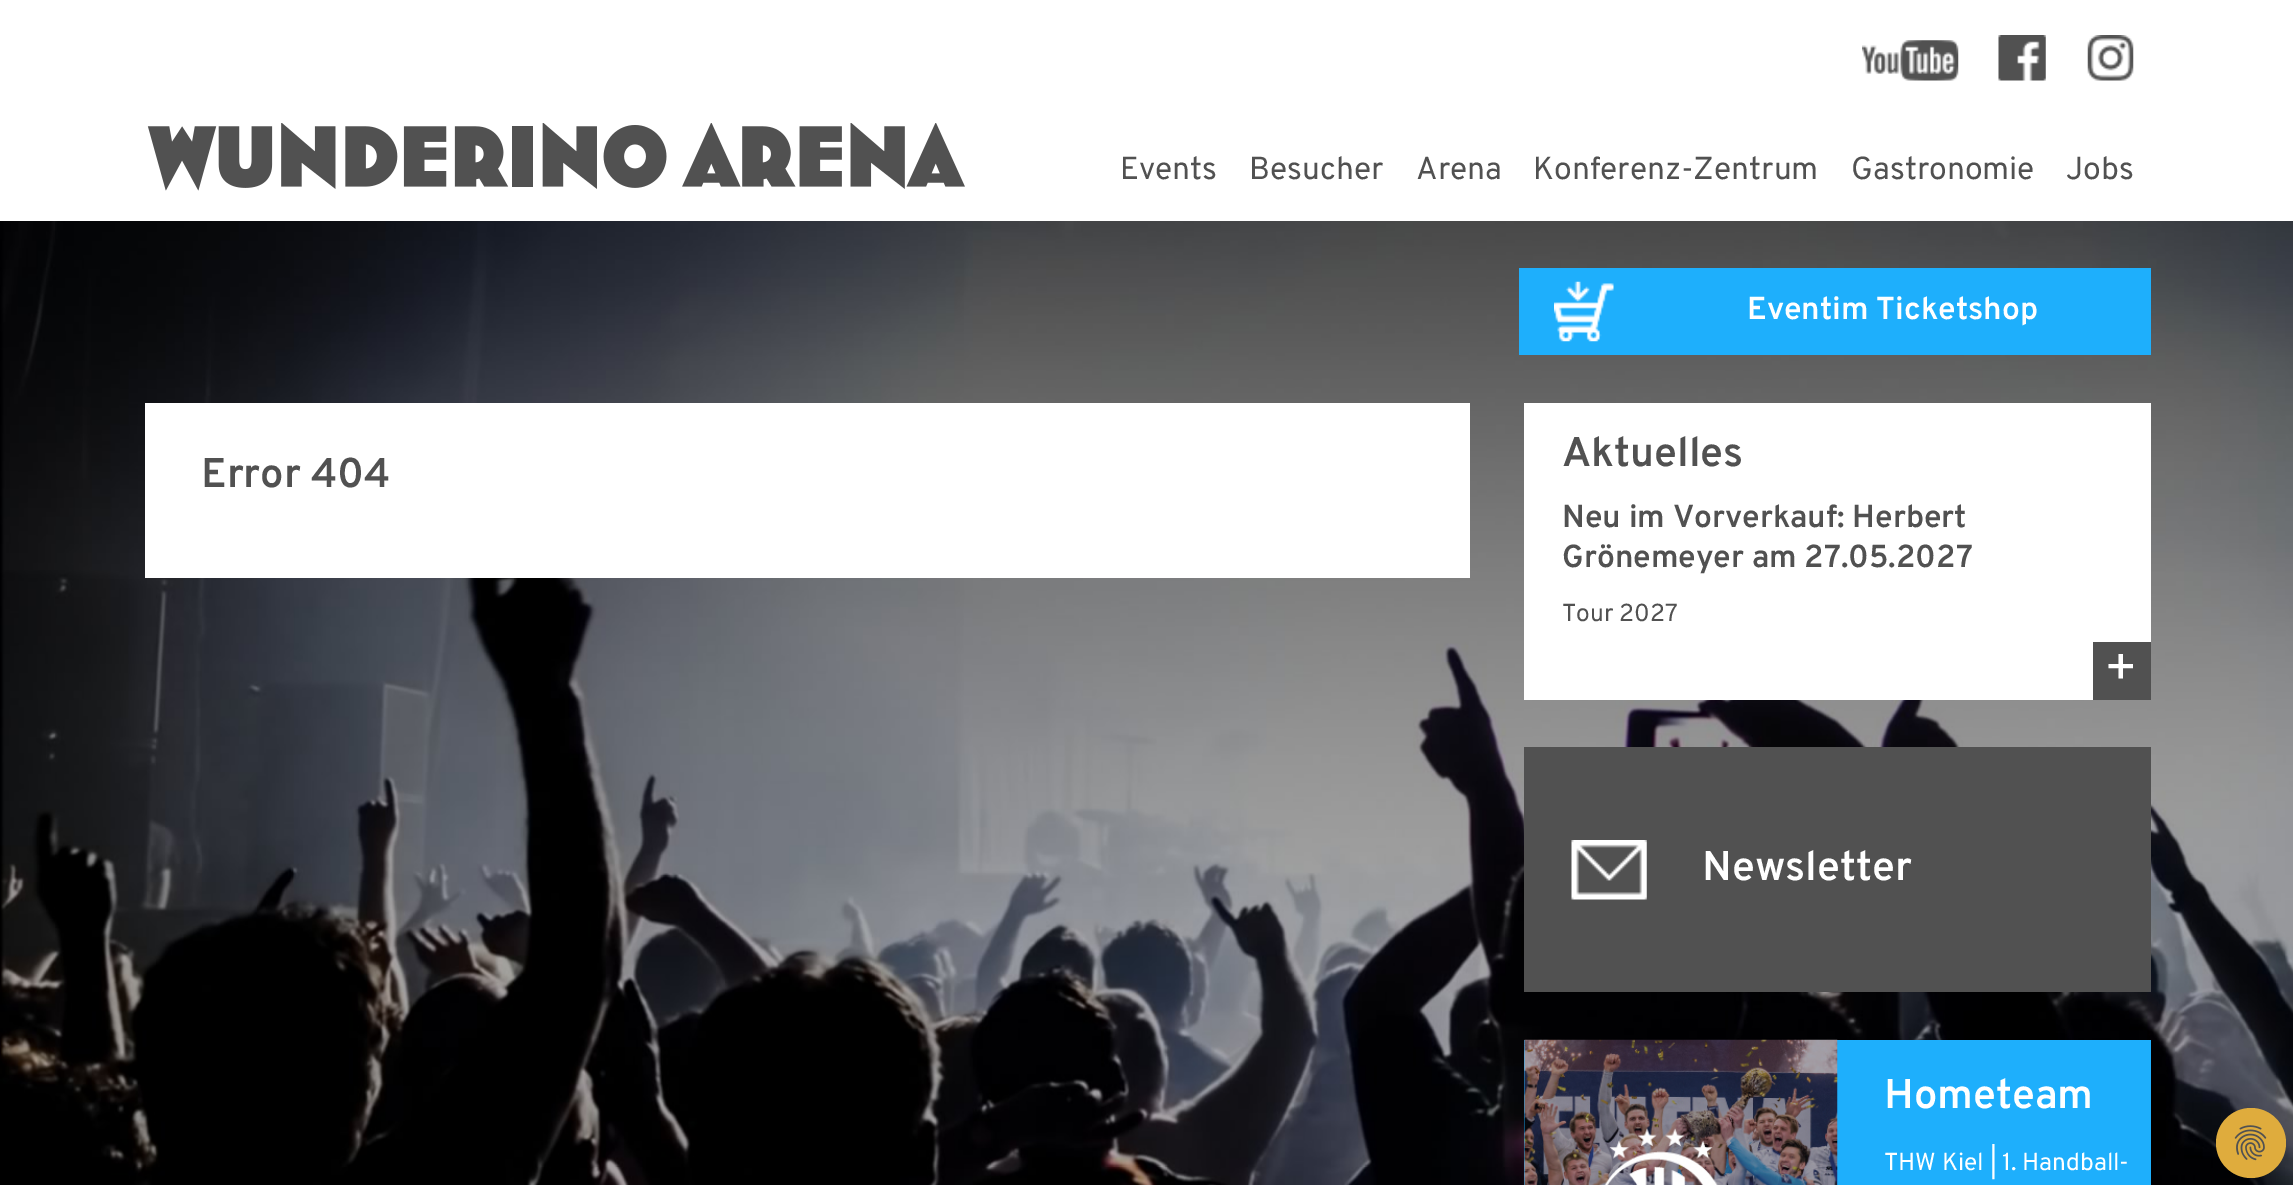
%!PS
<< /PageSize [2293 1185] >> setpagedevice
/rgb { 3 { 255 div 3 1 roll } repeat setrgbcolor } def
/font { [ exch dup neg 0 0 3 -1 roll 0 0 ] selectfont } def
/text { moveto show } def
/circle { newpath 0 360 arc closepath } def
/picture { 5 dict begin { /h /w /y /x /name } { exch def } forall
  gsave x y translate w h scale
  w h 8 [w 0 0 h 0 0] name (r) file false 3 colorimage grestore end } def
0 1185 translate 1 -1 scale
4 setmiterlimit
255 255 255 rgb
0 0 2293 1185 rectfill
(img_01.rgb) 0 221 2293 964 picture
(img_02.rgb) 147 123 818 68 picture
(img_03.rgb) 1862 40 97 41 picture
(img_04.rgb) 1998 35 48 46 picture
(img_05.rgb) 2087 35 47 46 picture
30 175 252 rgb
1519 268 632 87 rectfill
(img_06.rgb) 1554 281 60 61 picture
255 255 255 rgb
145 403 1325 175 rectfill
1524 403 627 297 rectfill
81 81 81 rgb
2093 642 58 58 rectfill
1524 747 627 245 rectfill
(img_07.rgb) 1571 840 76 60 picture
30 175 252 rgb
1524 1040 627 145 rectfill
(img_08.rgb) 1524 1039 314 146 picture
223 172 61 rgb
2251 1143 35 circle fill
(img_09.rgb) 2234 1125 33 36 picture
/Overpass-Regular 31.8 font
81 81 81 rgb
(Events) 1120 179 text
(Besucher) 1249 179 text
(Arena) 1416 179 text
(Konferenz-Zentrum) 1533 179 text
(Gastronomie) 1851 179 text
(Jobs) 2066 179 text
/Overpass-SemiBold 31.8 font
255 255 255 rgb
(Eventim Ticketshop) 1747 319 text
/Overpass-SemiBold 41.5 font
81 81 81 rgb
(Error 404) 201 487 text
(Aktuelles) 1562 466 text
/Overpass-SemiBold 31.8 font
(Neu im Vorverkauf: Herbert) 1562 527 text
(Grönemeyer am 27.05.2027) 1562 567 text
/Overpass-Regular 24.5 font
(Tour 2027) 1562 621 text
/Overpass-Regular 52 font
255 255 255 rgb
(+) 2104 684 text
/Overpass-SemiBold 41.5 font
(Newsletter) 1702 880 text
(Hometeam) 1884 1108 text
/Overpass-Regular 24.5 font
(THW Kiel | 1. Handball-) 1884 1170 text
showpage
